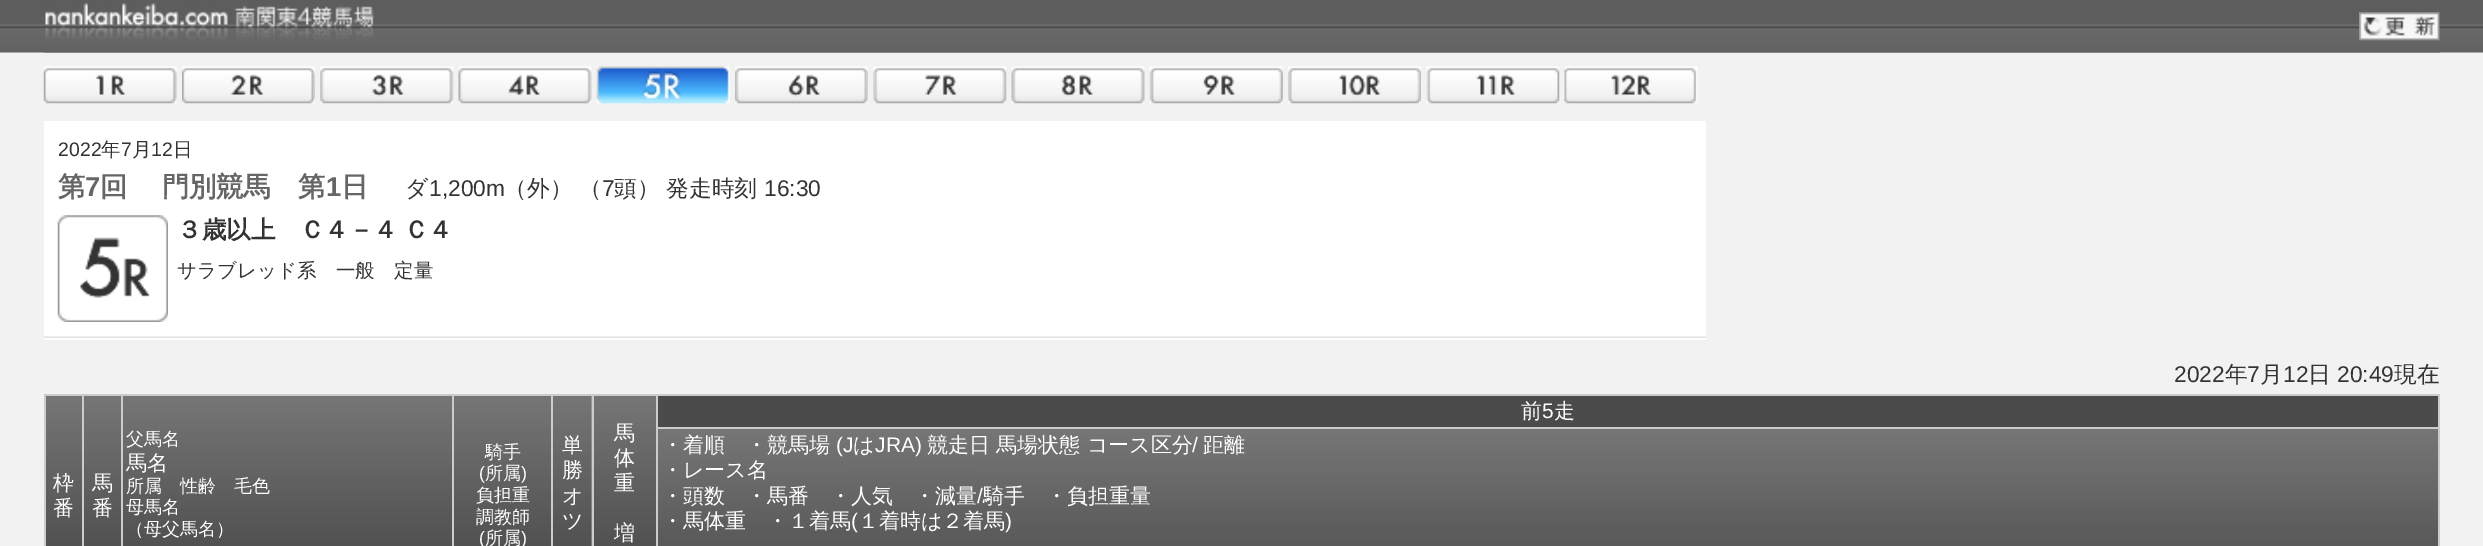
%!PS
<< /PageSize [2483 546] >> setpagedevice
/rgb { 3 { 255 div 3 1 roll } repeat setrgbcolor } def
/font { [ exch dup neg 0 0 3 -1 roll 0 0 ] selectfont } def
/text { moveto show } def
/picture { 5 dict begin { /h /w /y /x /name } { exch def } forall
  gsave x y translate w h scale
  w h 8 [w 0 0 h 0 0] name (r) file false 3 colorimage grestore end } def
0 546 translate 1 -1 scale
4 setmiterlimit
242 242 242 rgb
0 0 2483 546 rectfill
(img_01.rgb) 0 0 2483 53 picture
(img_02.rgb) 43 52 2397 1 picture
(img_03.rgb) 45 3 330 37 picture
(img_04.rgb) 2359 12 81 29 picture
(img_05.rgb) 43 66 134 38 picture
(img_06.rgb) 182 66 133 38 picture
(img_07.rgb) 320 66 134 38 picture
(img_08.rgb) 458 66 134 38 picture
(img_09.rgb) 596 66 134 38 picture
(img_10.rgb) 735 66 133 38 picture
(img_11.rgb) 873 66 134 38 picture
(img_12.rgb) 1011 66 134 38 picture
(img_13.rgb) 1149 66 134 38 picture
(img_14.rgb) 1288 66 133 38 picture
(img_15.rgb) 1426 66 134 38 picture
(img_16.rgb) 1564 66 134 38 picture
(img_17.rgb) 44 121 1662 217 picture
255 255 255 rgb
44 338 1662 2 rectfill
(img_18.rgb) 57 215 111 107 picture
204 204 204 rgb
44 394 2396 2 rectfill
2438 394 2 152 rectfill
44 394 2 152 rectfill
75 75 75 rgb
658 396 1780 31 rectfill
(img_19.rgb) 46 396 36 150 picture
(img_20.rgb) 84 396 37 150 picture
204 204 204 rgb
82 394 2 152 rectfill
(img_21.rgb) 123 396 329 150 picture
121 394 2 152 rectfill
(img_22.rgb) 454 396 97 150 picture
452 394 2 152 rectfill
(img_23.rgb) 553 396 39 150 picture
551 394 2 152 rectfill
(img_24.rgb) 591 396 65 150 picture
592 394 2 152 rectfill
(img_25.rgb) 658 429 1780 117 picture
656 427 1784 2 rectfill
656 394 2 152 rectfill
/LiberationSans-Regular 19.5 font
51 51 51 rgb
(2022) 58 156 text
/WenQuanYiZenHei-Medium 19.5 font
(年) 101 156 text
/LiberationSans-Regular 19.5 font
(7) 121 156 text
/WenQuanYiZenHei-Medium 19.5 font
(月) 132 156 text
/LiberationSans-Regular 19.5 font
(12) 151 156 text
/WenQuanYiZenHei-Medium 19.5 font
(日) 173 156 text
/WenQuanYiZenHei-Bold 27.25 font
102 102 102 rgb
(第) 58 196 text
/LiberationSans-Bold 27.25 font
(7) 85 196 text
/WenQuanYiZenHei-Bold 27.25 font
100 196 moveto -1 0 32 (回　 門別競馬　第) widthshow
/LiberationSans-Bold 27.25 font
(1) 326 196 text
/WenQuanYiZenHei-Bold 27.25 font
(日) 341 196 text
/WenQuanYiZenHei-Medium 22.75 font
51 51 51 rgb
(ダ) 405 196 text
/LiberationSans-Regular 22.75 font
(1,200m) 429 196 text
/WenQuanYiZenHei-Medium 22.75 font
(（外） （) 504 196 text
/LiberationSans-Regular 22.75 font
(7) 602 196 text
/WenQuanYiZenHei-Medium 22.75 font
(頭）) 614 196 text
(発走時刻) 666 196 text
/LiberationSans-Regular 22.75 font
(16:30) 764 196 text
/WenQuanYiZenHei-Bold 24.5 font
177 238 moveto -1 0 32 (３歳以上　Ｃ４－４ Ｃ４) widthshow
/WenQuanYiZenHei-Medium 19.5 font
(サラブレッド系　一般　定量) 177 277 text
/LiberationSans-Regular 22.75 font
(2022) 2174 382 text
/WenQuanYiZenHei-Medium 22.75 font
(年) 2225 382 text
/LiberationSans-Regular 22.75 font
(7) 2247 382 text
/WenQuanYiZenHei-Medium 22.75 font
(月) 2260 382 text
/LiberationSans-Regular 22.75 font
(12) 2283 382 text
/WenQuanYiZenHei-Medium 22.75 font
(日) 2308 382 text
/LiberationSans-Regular 22.75 font
(20:49) 2337 382 text
/WenQuanYiZenHei-Medium 22.75 font
(現在) 2394 382 text
/WenQuanYiZenHei-Medium 21 font
255 255 255 rgb
(前) 1521 418 text
/LiberationSans-Regular 21 font
(5) 1542 418 text
/WenQuanYiZenHei-Medium 21 font
(走) 1554 418 text
(枠) 53 490 text
(番) 53 515 text
(馬) 92 490 text
(番) 92 515 text
/WenQuanYiZenHei-Medium 18 font
(父馬名) 126 445 text
/WenQuanYiZenHei-Medium 21 font
(馬名) 126 470 text
/WenQuanYiZenHei-Medium 18 font
(所属　性齢　毛色) 126 492 text
(母馬名) 126 513 text
(（母父馬名）) 126 535 text
(騎手) 485 458 text
/LiberationSans-Regular 18 font
(\() 479 479 text
/WenQuanYiZenHei-Medium 18 font
(所属) 485 479 text
/LiberationSans-Regular 18 font
(\)) 521 479 text
/WenQuanYiZenHei-Medium 18 font
(負担重) 476 501 text
(調教師) 476 523 text
/LiberationSans-Regular 18 font
(\() 479 544 text
/WenQuanYiZenHei-Medium 18 font
(所属) 485 544 text
/LiberationSans-Regular 18 font
(\)) 521 544 text
/WenQuanYiZenHei-Medium 21 font
(単) 562 452 text
(勝) 562 477 text
(オ) 562 503 text
(ツ) 562 528 text
(馬) 614 440 text
(体) 614 465 text
(重) 614 490 text
(増) 614 540 text
(・着順　・競馬場) 662 452 text
/LiberationSans-Regular 21 font
(\(J) 836 452 text
/WenQuanYiZenHei-Medium 21 font
(は) 853 452 text
/LiberationSans-Regular 21 font
(JRA\)) 875 452 text
/WenQuanYiZenHei-Medium 21 font
(競走日 馬場状態 コース区分) 927 452 text
/LiberationSans-Regular 21 font
(/) 1192 452 text
/WenQuanYiZenHei-Medium 21 font
(距離) 1203 452 text
(・レース名) 662 477 text
(・頭数　・馬番　・人気　・減量) 662 503 text
/LiberationSans-Regular 21 font
(/) 977 503 text
/WenQuanYiZenHei-Medium 21 font
(騎手　・負担重量) 983 503 text
(・馬体重　・１着馬) 662 528 text
/LiberationSans-Regular 21 font
(\() 851 528 text
/WenQuanYiZenHei-Medium 21 font
(１着時は２着馬) 858 528 text
/LiberationSans-Regular 21 font
(\)) 1005 528 text
showpage
